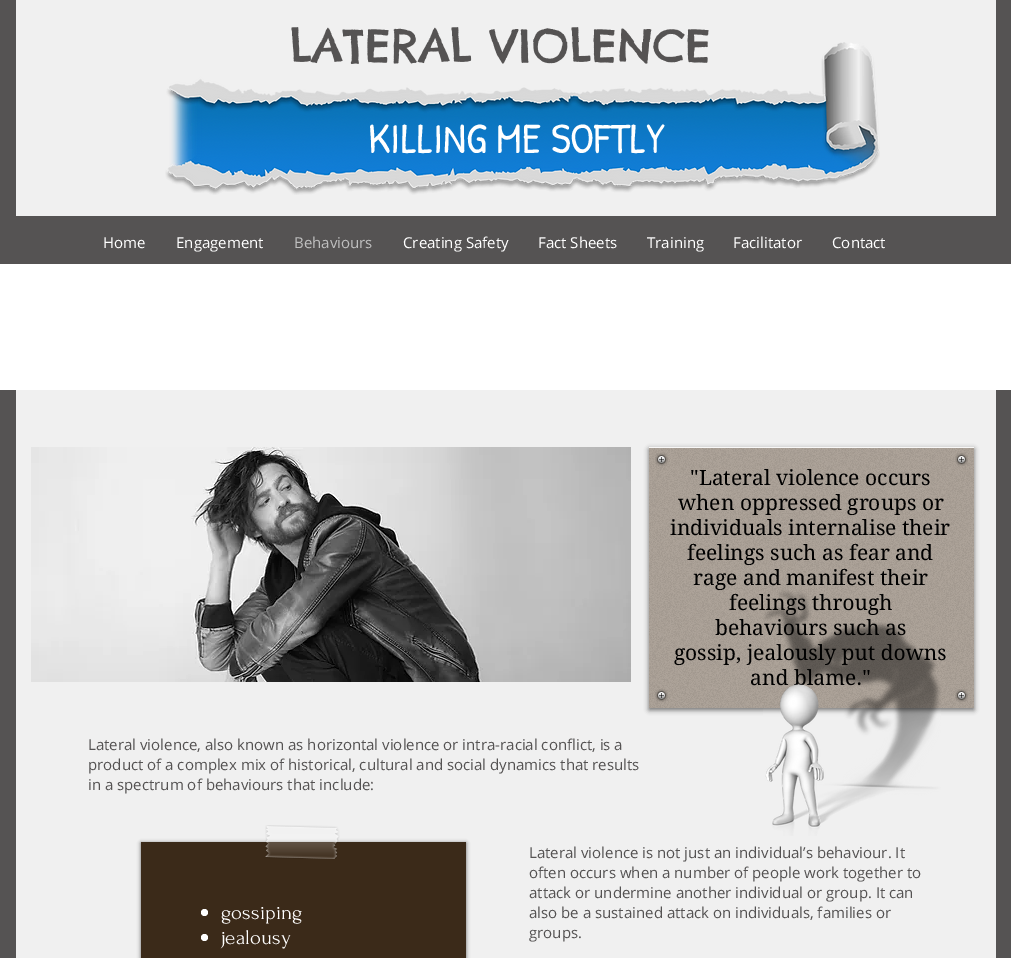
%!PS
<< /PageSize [1011 958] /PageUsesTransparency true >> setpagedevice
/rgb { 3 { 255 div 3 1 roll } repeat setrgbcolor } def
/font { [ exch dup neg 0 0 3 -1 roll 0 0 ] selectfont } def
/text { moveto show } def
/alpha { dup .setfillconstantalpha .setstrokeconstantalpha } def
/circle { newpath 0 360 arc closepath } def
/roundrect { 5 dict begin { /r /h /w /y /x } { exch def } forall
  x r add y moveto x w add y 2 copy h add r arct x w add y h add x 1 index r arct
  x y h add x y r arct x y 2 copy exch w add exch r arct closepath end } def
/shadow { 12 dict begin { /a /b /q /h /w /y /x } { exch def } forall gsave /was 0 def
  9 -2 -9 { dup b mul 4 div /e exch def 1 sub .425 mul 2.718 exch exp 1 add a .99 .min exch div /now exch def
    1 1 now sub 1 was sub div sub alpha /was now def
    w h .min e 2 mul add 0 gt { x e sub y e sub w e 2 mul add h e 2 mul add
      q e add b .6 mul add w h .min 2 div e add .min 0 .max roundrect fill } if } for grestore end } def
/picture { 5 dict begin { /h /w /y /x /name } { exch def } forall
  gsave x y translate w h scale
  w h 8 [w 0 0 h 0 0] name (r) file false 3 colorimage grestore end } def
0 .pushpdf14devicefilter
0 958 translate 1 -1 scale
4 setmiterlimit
85 83 83 rgb
0 0 1011 958 rectfill
240 240 240 rgb
16 0 980 216 rectfill
16 390 980 568 rectfill
255 255 255 rgb
0 264 1011 126 rectfill
(img_02.rgb) 31 447 600 235 picture
0 0 0 rgb
649 449 325 261 0 2.5 0.53 shadow
172 162 152 rgb
649 447 325 261 rectfill
(img_03.rgb) 649 447 325 261 picture
0.92 alpha
255 255 255 rgb
649 447 325 1 rectfill
1 alpha
(img_04.rgb) 655 453 13 13 picture
(img_05.rgb) 955 453 13 13 picture
(img_06.rgb) 655 689 13 13 picture
(img_07.rgb) 955 689 13 13 picture
0 0 0 rgb
141 843 325 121 0 2 0.6 shadow
59 42 25 rgb
141 842 325 116 rectfill
(img_09.rgb) 265 825 75 34 picture
255 255 255 rgb
204.5 912.5 3.5 circle fill
204.5 937.5 3.5 circle fill
/ChelseaMarket-Regular 45 font
85 83 83 rgb
(LATERAL VIOLENCE) 290 62 text
(img_01.rgb) 165 42 715 153 picture
/PatrickHand-Regular 43 font
255 255 255 rgb
(KILLING ME SOFTLY) 368 153 text
/OpenSans-Regular 15 font
(Home) 103 248 text
(Engagement) 176 248 text
190 190 190 rgb
(Behaviours) 294 248 text
255 255 255 rgb
(Creating Safety) 403 248 text
(Fact Sheets) 538 248 text
(Training) 647 248 text
(Facilitator) 733 248 text
(Contact) 832 248 text
/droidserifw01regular-Regular 21 font
0 0 0 rgb
("Lateral violence occurs) 690 485 text
(when oppressed groups or) 678 510 text
(individuals internalise their) 670 535 text
(feelings such as fear and) 687 560 text
(rage and manifest their) 693 585 text
(feelings through) 729 610 text
(behaviours such as) 715 635 text
(gossip, jealously put downs) 674 660 text
(and blame.") 750 685 text
/OpenSans-Regular 15 font
85 83 83 rgb
(Lateral violence, also known as horizontal violence or intra-racial conflict, is a) 88 750 text
(product of a complex mix of historical, cultural and social dynamics that results) 88 770 text
(in a spectrum of behaviours that include:) 88 790 text
(img_08.rgb) 763 590 178 246 picture
/Forum-Regular 21 font
255 255 255 rgb
(gossiping) 221 919 text
(jealousy) 221 944 text
/OpenSans-Regular 15 font
85 83 83 rgb
(Lateral violence is not just an individual’s behaviour. It) 529 858 text
(often occurs when a number of people work together to) 529 878 text
(attack or undermine another individual or group. It can) 529 898 text
(also be a sustained attack on individuals, families or) 529 918 text
(groups.) 529 938 text
.poppdf14devicefilter showpage
